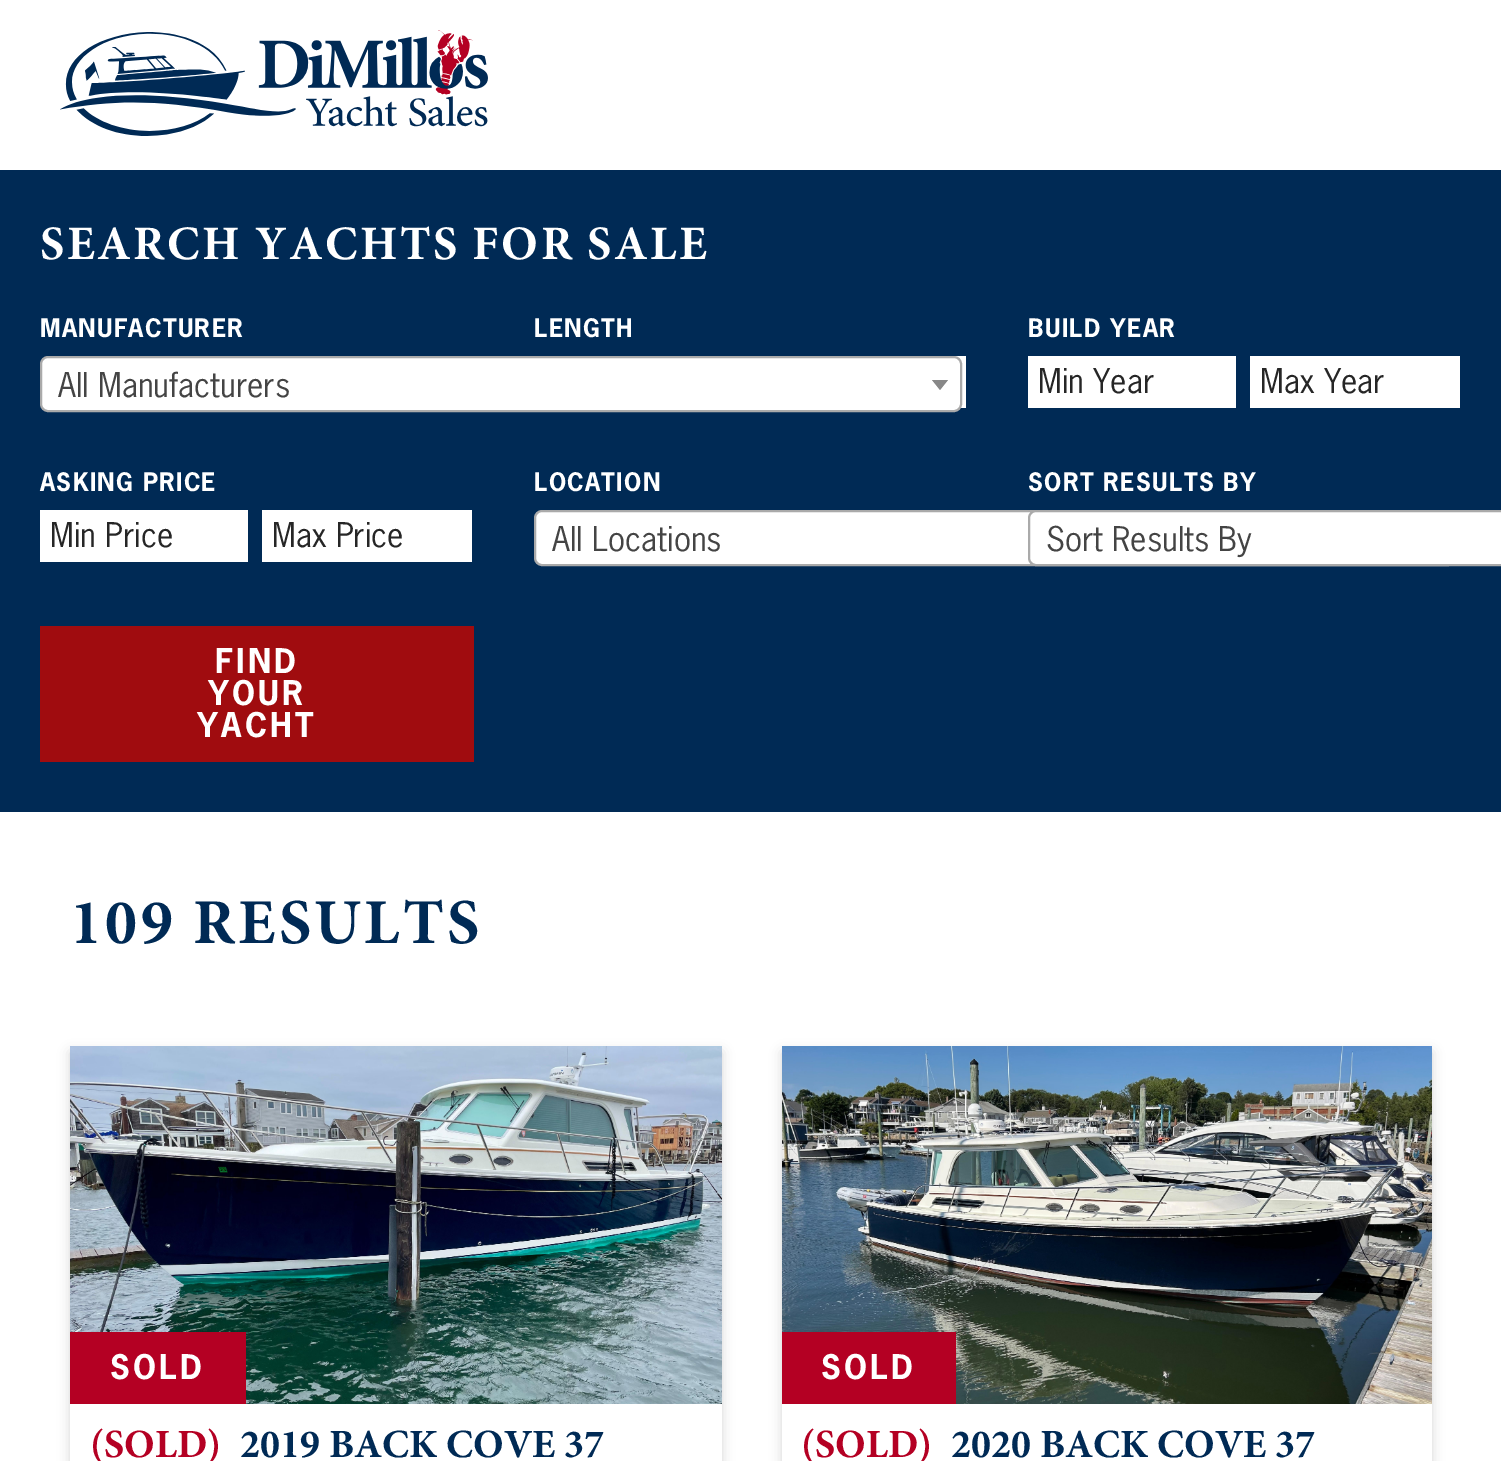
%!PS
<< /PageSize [1501 1461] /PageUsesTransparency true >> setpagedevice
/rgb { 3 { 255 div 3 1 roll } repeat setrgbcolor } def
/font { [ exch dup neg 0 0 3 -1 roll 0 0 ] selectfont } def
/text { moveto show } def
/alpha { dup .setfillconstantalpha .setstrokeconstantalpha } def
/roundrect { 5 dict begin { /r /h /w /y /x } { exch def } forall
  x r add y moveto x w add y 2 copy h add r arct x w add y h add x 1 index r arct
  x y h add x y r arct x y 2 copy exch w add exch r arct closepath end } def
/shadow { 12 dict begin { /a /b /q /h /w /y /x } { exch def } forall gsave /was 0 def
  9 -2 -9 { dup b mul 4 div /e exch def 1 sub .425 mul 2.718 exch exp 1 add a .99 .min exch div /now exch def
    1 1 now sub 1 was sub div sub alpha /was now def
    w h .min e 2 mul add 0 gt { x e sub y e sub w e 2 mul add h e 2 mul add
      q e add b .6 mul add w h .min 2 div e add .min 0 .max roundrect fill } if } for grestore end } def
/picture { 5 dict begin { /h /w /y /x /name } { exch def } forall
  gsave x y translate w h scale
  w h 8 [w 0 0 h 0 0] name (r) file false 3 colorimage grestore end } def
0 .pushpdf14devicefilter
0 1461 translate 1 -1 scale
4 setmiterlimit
255 255 255 rgb
0 0 1501 1461 rectfill
(img_01.rgb) 60 30 428 106 picture
0 42 85 rgb
0 170 1501 642 rectfill
255 255 255 rgb
954 356 12 52 rectfill
41 357 920 54 7 roundrect gsave fill grestore
170 170 170 rgb
2 setlinewidth
stroke
136 136 136 rgb
932 380 moveto 16 0 rlineto -8 10 rlineto closepath fill
255 255 255 rgb
1028 356 208 52 rectfill
1250 356 210 52 rectfill
40 510 208 52 rectfill
262 510 210 52 rectfill
535 511 920 54 7 roundrect gsave fill grestore
170 170 170 rgb
stroke
255 255 255 rgb
1029 511 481 54 7 roundrect gsave fill grestore
170 170 170 rgb
stroke
160 12 15 rgb
40 626 434 136 rectfill
gsave
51 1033 moveto 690 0 rlineto 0 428 rlineto -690 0 rlineto closepath 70 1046 moveto 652 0 rlineto 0 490 rlineto -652 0 rlineto closepath eoclip newpath
0 0 0 rgb
70 1052 652 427 0 6 0.16 shadow
grestore
(img_02.rgb) 70 1046 652 358 picture
180 0 35 rgb
70 1332 176 72 rectfill
gsave
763 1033 moveto 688 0 rlineto 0 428 rlineto -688 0 rlineto closepath 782 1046 moveto 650 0 rlineto 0 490 rlineto -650 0 rlineto closepath eoclip newpath
0 0 0 rgb
782 1052 650 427 0 6 0.16 shadow
grestore
(img_03.rgb) 782 1046 650 358 picture
782 1332 174 72 rectfill
/Minion-Bold 48 font
255 255 255 rgb
40 259 moveto 2.4 0 (SEARCH YACHTS FOR SALE) ashow
/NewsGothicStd-Bold 24 font
40 337 moveto 1.25 0 (MANUFACTURER) ashow
/NewsGothicStd-Regular 32 font
68 68 68 rgb
(All Manufacturers) 58 397 text
/NewsGothicStd-Bold 24 font
255 255 255 rgb
534 337 moveto 1.25 0 (LENGTH) ashow
1028 337 moveto 1.25 0 (BUILD YEAR) ashow
/NewsGothicStd-Regular 32 font
38 38 38 rgb
(Min Year) 1038 393 text
(Max Year) 1260 393 text
/NewsGothicStd-Bold 24 font
255 255 255 rgb
40 491 moveto 1.25 0 (ASKING PRICE) ashow
/NewsGothicStd-Regular 32 font
38 38 38 rgb
(Min Price) 50 547 text
(Max Price) 272 547 text
/NewsGothicStd-Bold 24 font
255 255 255 rgb
534 491 moveto 1.25 0 (LOCATION) ashow
/NewsGothicStd-Regular 32 font
68 68 68 rgb
(All Locations) 552 551 text
/NewsGothicStd-Bold 24 font
255 255 255 rgb
1028 491 moveto 1.25 0 (SORT RESULTS BY) ashow
/NewsGothicStd-Regular 32 font
68 68 68 rgb
(Sort Results By) 1046 551 text
/NewsGothicStd-Bold 32 font
255 255 255 rgb
215 673 moveto 3.25 0 (FIND) ashow
208 705 moveto 3.25 0 (YOUR) ashow
197 737 moveto 3.25 0 (YACHT) ashow
/Minion-Bold 64 font
0 42 85 rgb
70 943 moveto 3.25 0 (109 RESULTS) ashow
/NewsGothicStd-Bold 32 font
255 255 255 rgb
110 1379 moveto 3.25 0 (SOLD) ashow
/Minion-Bold 40 font
180 0 35 rgb
(\(SOLD\)) 90 1457 text
0 42 85 rgb
(2019 BACK COVE 37) 240 1457 text
/NewsGothicStd-Bold 32 font
255 255 255 rgb
821 1379 moveto 3.25 0 (SOLD) ashow
/Minion-Bold 40 font
180 0 35 rgb
(\(SOLD\)) 801 1457 text
0 42 85 rgb
(2020 BACK COVE 37) 951 1457 text
.poppdf14devicefilter showpage
